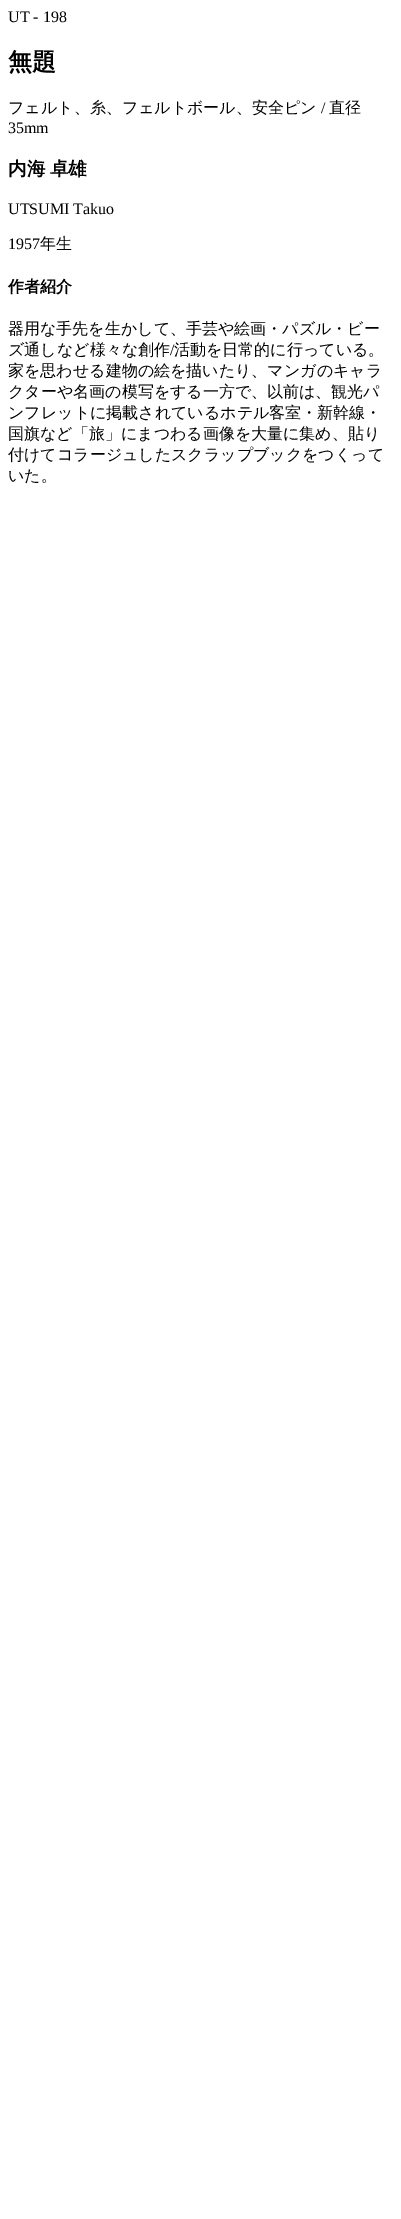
%!PS
<< /PageSize [401 2219] >> setpagedevice
/rgb { 3 { 255 div 3 1 roll } repeat setrgbcolor } def
/font { [ exch dup neg 0 0 3 -1 roll 0 0 ] selectfont } def
/text { moveto show } def
0 2219 translate 1 -1 scale
4 setmiterlimit
255 255 255 rgb
0 0 401 2219 rectfill
/LiberationSerif-Regular 16 font
0 0 0 rgb
(UT - 198) 8 22 text
/WenQuanYiZenHei-Bold 24 font
(無題) 8 70 text
/WenQuanYiZenHei-Medium 16 font
(フェルト、糸、フェルトボール、安全ピン) 8 113 text
/LiberationSerif-Regular 16 font
(/) 321 113 text
/WenQuanYiZenHei-Medium 16 font
(直径) 329 113 text
/LiberationSerif-Regular 16 font
(35mm) 8 133 text
/WenQuanYiZenHei-Bold 18.5 font
8 175 moveto -1 0 32 (内海 卓雄) widthshow
/LiberationSerif-Regular 16 font
(UTSUMI Takuo) 8 214 text
(1957) 8 249 text
/WenQuanYiZenHei-Medium 16 font
(年生) 40 249 text
/WenQuanYiZenHei-Bold 16 font
(作者紹介) 8 292 text
/WenQuanYiZenHei-Medium 16 font
(器用な手先を生かして、手芸や絵画・パズル・ビー) 8 334 text
(ズ通しなど様々な創作) 8 355 text
/LiberationSerif-Regular 16 font
(/) 170 355 text
/WenQuanYiZenHei-Medium 16 font
(活動を日常的に行っている。) 174 355 text
(家を思わせる建物の絵を描いたり、マンガのキャラ) 8 376 text
(クターや名画の模写をする一方で、以前は、観光パ) 8 397 text
(ンフレットに掲載されているホテル客室・新幹線・) 8 418 text
(国旗など「旅」にまつわる画像を大量に集め、貼り) 8 439 text
(付けてコラージュしたスクラップブックをつくって) 8 460 text
(いた。) 8 481 text
showpage
